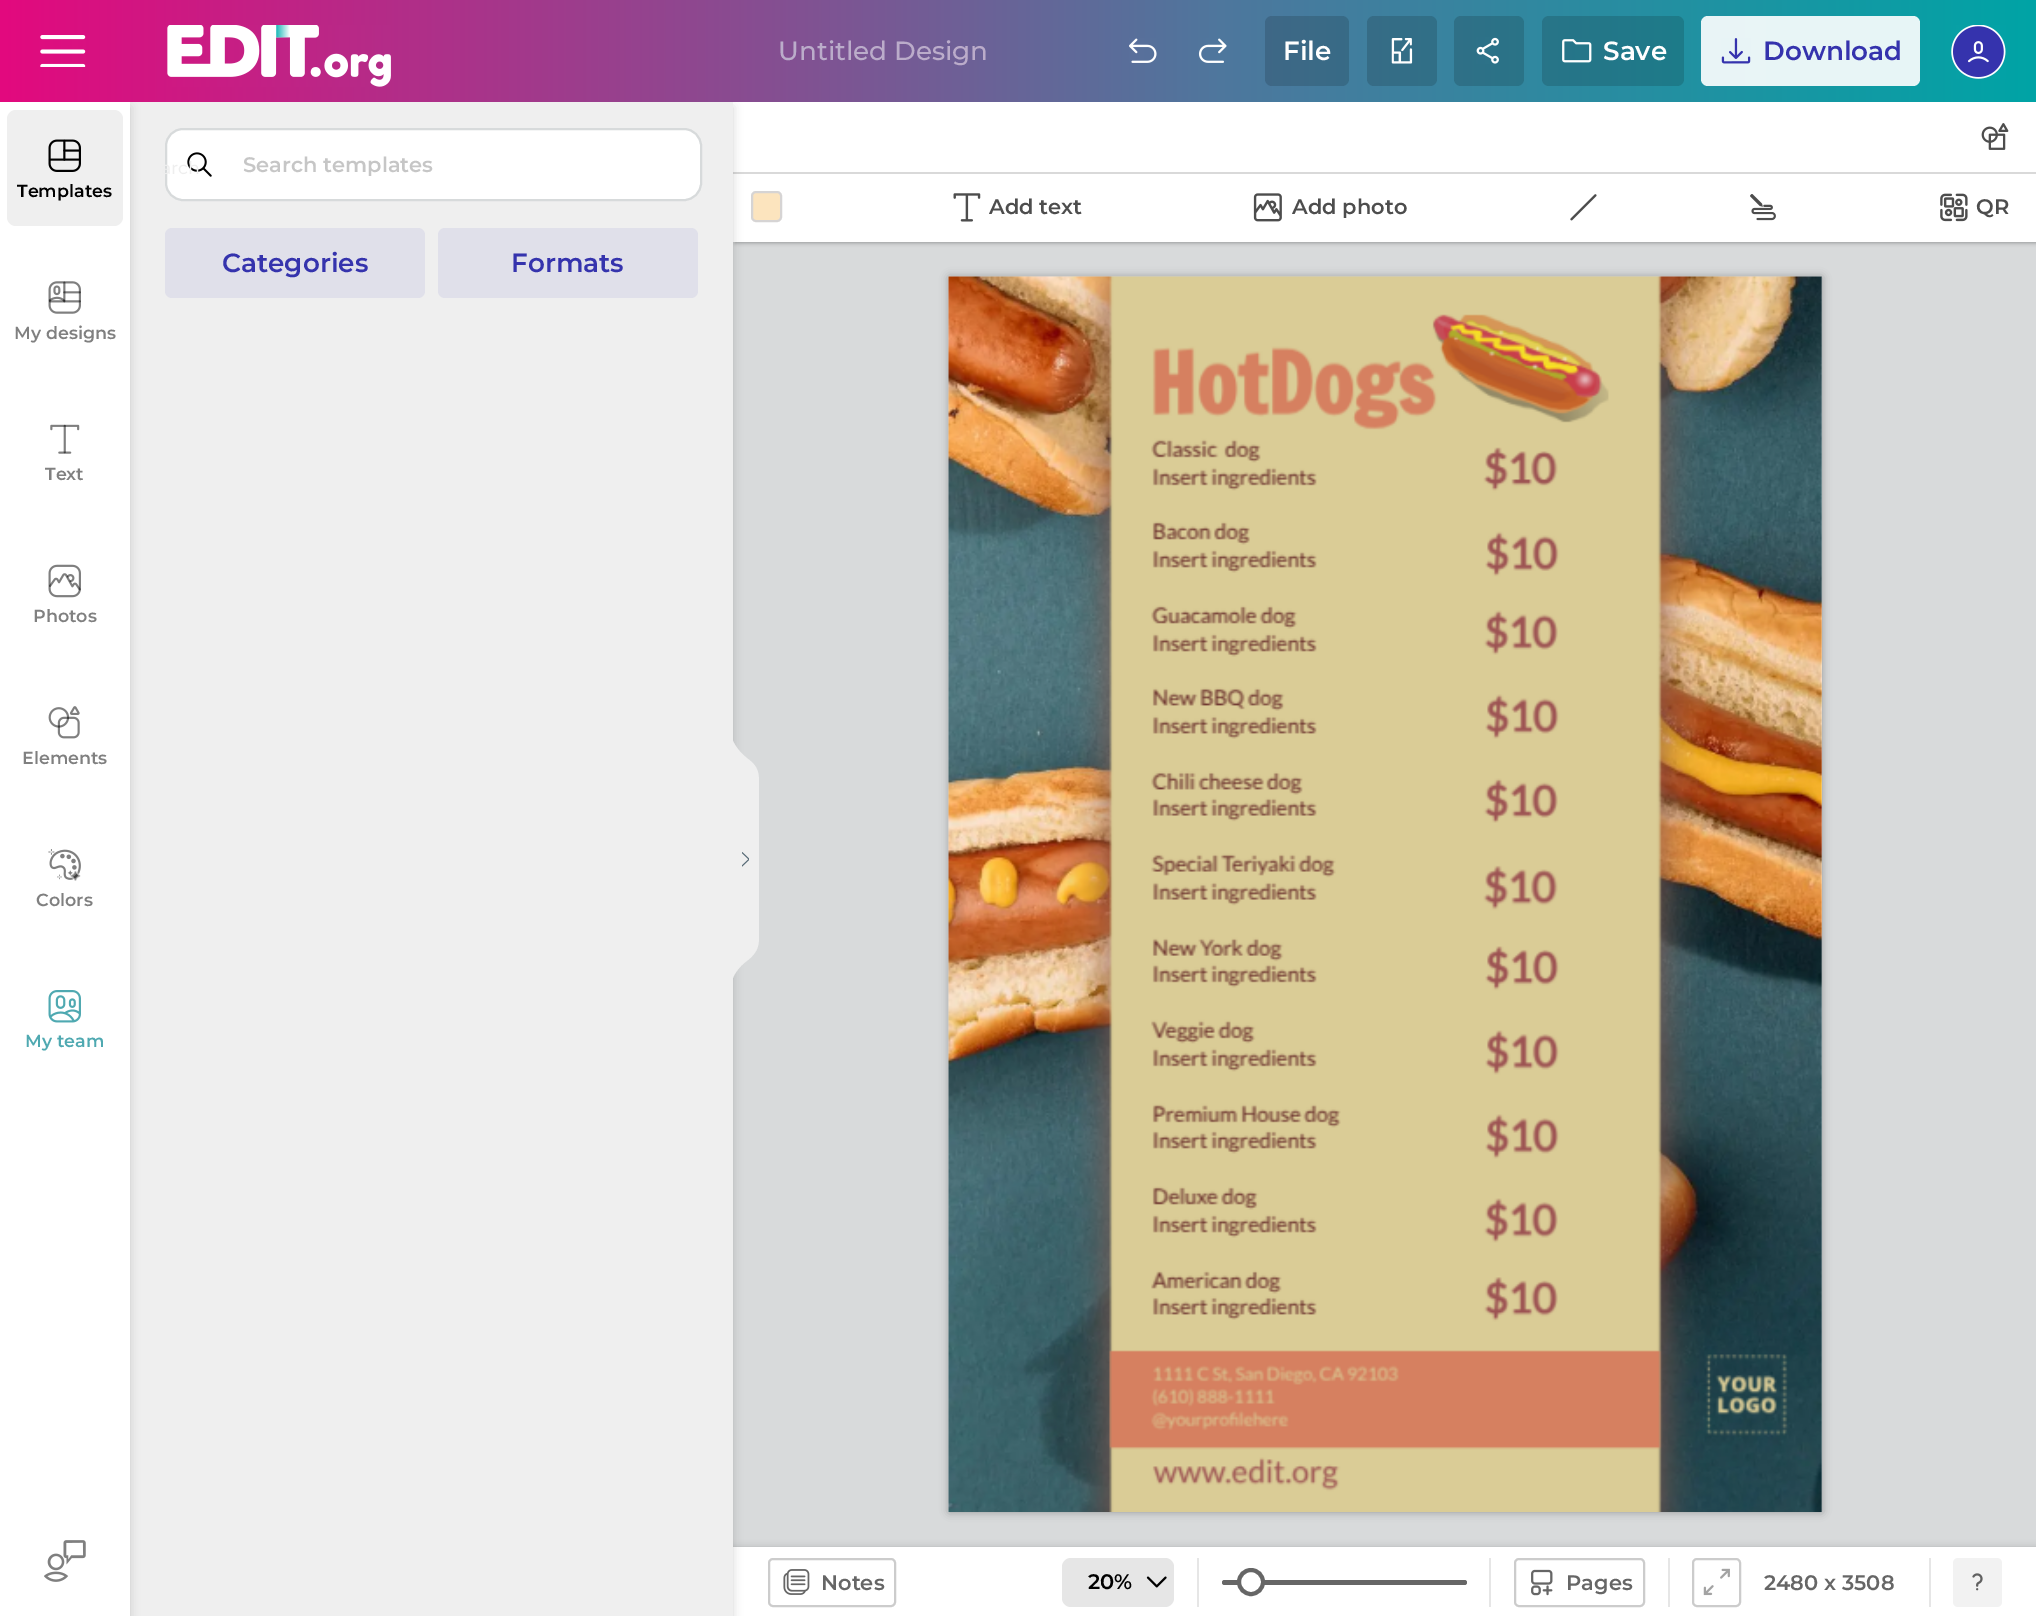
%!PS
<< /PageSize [2036 1616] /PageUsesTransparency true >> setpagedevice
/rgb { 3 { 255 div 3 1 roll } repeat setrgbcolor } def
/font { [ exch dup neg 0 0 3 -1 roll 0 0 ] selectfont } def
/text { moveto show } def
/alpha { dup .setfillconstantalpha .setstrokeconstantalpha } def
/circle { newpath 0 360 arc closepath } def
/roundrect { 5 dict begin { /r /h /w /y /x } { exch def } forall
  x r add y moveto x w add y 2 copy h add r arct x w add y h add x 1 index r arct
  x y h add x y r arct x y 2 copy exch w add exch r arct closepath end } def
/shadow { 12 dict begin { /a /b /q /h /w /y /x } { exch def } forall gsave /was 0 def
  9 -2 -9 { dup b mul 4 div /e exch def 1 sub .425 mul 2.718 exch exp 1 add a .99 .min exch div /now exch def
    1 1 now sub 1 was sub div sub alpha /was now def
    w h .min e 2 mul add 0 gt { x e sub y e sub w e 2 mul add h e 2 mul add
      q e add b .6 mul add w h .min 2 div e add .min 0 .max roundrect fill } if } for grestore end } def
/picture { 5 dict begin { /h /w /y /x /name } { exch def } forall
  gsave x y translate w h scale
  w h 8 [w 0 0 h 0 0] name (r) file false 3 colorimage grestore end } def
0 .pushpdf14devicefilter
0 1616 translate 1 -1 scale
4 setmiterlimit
216 218 219 rgb
0 0 2036 1616 rectfill
0 0 0 rgb
735 103 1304 140 0 2 0.3 shadow
255 255 255 rgb
733 102 1303 140 rectfill
217 217 217 rgb
733 172 1303 2 rectfill
0 0 0 rgb
733 1547 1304 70 0 3.5 0.16 shadow
255 255 255 rgb
733 1547 1303 69 rectfill
0 0 0 rgb
0 107 733 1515 0 5 0.16 shadow
239 239 239 rgb
748 960 moveto 11 -9 11 -16 11 -26 rcurveto 0 -149 rlineto 0 -11 0 -18 -11 -26 rcurveto -14 -11 -16 -21 -16 -21 rcurveto 0 243 rlineto 0 0 2 -11 16 -21 rcurveto fill
130 102 603 1514 rectfill
0 0 0 rgb
0 107 130 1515 0 5 0.16 shadow
gsave 0 0 moveto 2036 0 rlineto 0 102 rlineto -2036 0 rlineto closepath clip newpath
<< /ShadingType 2 /ColorSpace /DeviceRGB /Coords [0 51 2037 51] /Extend [true true] /Function << /FunctionType 3 /Domain [0 1] /Functions [<< /FunctionType 2 /Domain [0 1] /C0 [0.89 0.035 0.494] /C1 [0.306 0.467 0.616] /N 1 >> << /FunctionType 2 /Domain [0 1] /C0 [0.306 0.467 0.616] /C1 [0 0.643 0.651] /N 1 >>] /Bounds [0.6] /Encode [0 1 0 1] >> >> shfill grestore
(img_01.rgb) 40 35 46 32 picture
(img_02.rgb) 167 25 224 62 picture
(img_03.rgb) 1129 38 28 25 picture
(img_04.rgb) 1198 38 29 25 picture
0.15 alpha
1265 16 84 70 7 roundrect fill
1367 16 70 70 7 roundrect fill
1 alpha
(img_05.rgb) 1391 38 22 26 picture
0.15 alpha
1454 16 70 70 7 roundrect fill
1 alpha
(img_06.rgb) 1476 37 23 27 picture
0.15 alpha
1542 16 142 70 7 roundrect fill
1 alpha
(img_07.rgb) 1562 39 30 24 picture
0.9 alpha
255 255 255 rgb
1701 16 219 70 7 roundrect fill
1 alpha
(img_08.rgb) 1721 38 30 26 picture
(img_09.rgb) 1951 25 55 54 picture
0 102 130 1514 rectfill
239 239 239 rgb
7 110 116 116 9 roundrect fill
(img_10.rgb) 48 139 33 33 picture
(img_11.rgb) 48 281 33 33 picture
(img_12.rgb) 50 424 30 30 picture
(img_13.rgb) 48 564 33 34 picture
(img_14.rgb) 48 706 32 33 picture
(img_15.rgb) 48 849 33 32 picture
(img_16.rgb) 48 990 33 33 picture
(img_17.rgb) 44 1540 42 42 picture
255 255 255 rgb
166 129 535 71 17 roundrect gsave fill grestore
215 218 219 rgb
2 setlinewidth
stroke
(img_18.rgb) 187 152 25 25 picture
224 224 234 rgb
165 228 260 70 7 roundrect fill
438 228 260 70 7 roundrect fill
(img_19.rgb) 742 852 7 15 picture
(img_20.rgb) 1981 123 28 27 picture
252 228 190 rgb
752 192 29 29 4 roundrect gsave fill grestore
214 212 212 rgb
stroke
(img_21.rgb) 953 193 28 29 picture
(img_22.rgb) 1253 193 29 29 picture
(img_23.rgb) 1570 194 27 27 picture
(img_24.rgb) 1750 194 26 27 picture
(img_25.rgb) 1940 193 28 29 picture
0 0 0 rgb
949 277 873 1235 0 4.5 0.3 shadow
(img_26.rgb) 948 276 874 1236 picture
204 204 204 rgb
769 1559 126 47 4 roundrect stroke
(img_27.rgb) 783 1569 27 26 picture
230 230 230 rgb
1197 1558 2 49 rectfill
1062 1558 112 49 9 roundrect fill
(img_28.rgb) 1146 1576 21 12 picture
102 102 102 rgb
1222 1580 245 5 2.5 roundrect fill
255 255 255 rgb
1251 1582 12 circle gsave fill grestore
102 102 102 rgb
4 setlinewidth
stroke
230 230 230 rgb
1489 1558 2 49 rectfill
204 204 204 rgb
2 setlinewidth
1515 1559 129 47 4 roundrect stroke
(img_29.rgb) 1531 1569 22 27 picture
230 230 230 rgb
1668 1558 2 49 rectfill
204 204 204 rgb
1693 1559 47 47 4 roundrect stroke
(img_30.rgb) 1703 1568 27 28 picture
230 230 230 rgb
1929 1558 2 49 rectfill
242 242 242 rgb
1953 1558 49 49 5 roundrect fill
(img_31.rgb) 1972 1573 11 18 picture
/Montserrat-Medium 26.25 font
187 172 202 rgb
(Untitled Design) 778 60 text
/Montserrat-SemiBold 26.25 font
255 255 255 rgb
(File) 1283 60 text
(Save) 1603 60 text
53 51 173 rgb
(Download) 1763 60 text
/Montserrat-Regular 17.5 font
238 238 238 rgb
(arch) 161 174 text
/Montserrat-SemiBold 17.5 font
0 0 0 rgb
(Templates) 17 197 text
128 128 128 rgb
(My designs) 14 339 text
(Text) 45 480 text
(Photos) 33 622 text
(Elements) 22 764 text
(Colors) 36 906 text
79 169 177 rgb
(My team) 25 1047 text
/Montserrat-SemiBold 21 font
198 198 198 rgb
(Search templates) 243 172 text
/Montserrat-SemiBold 26.25 font
53 51 173 rgb
(Categories) 222 272 text
(Formats) 511 272 text
/Montserrat-SemiBold 21 font
77 77 77 rgb
(Add text) 989 214 text
(Add photo) 1292 214 text
(QR) 1976 214 text
102 102 102 rgb
(Notes) 821 1590 text
0 0 0 rgb
(20%) 1088 1589 text
102 102 102 rgb
(Pages) 1566 1590 text
(2480 x 3508) 1764 1590 text
.poppdf14devicefilter showpage
